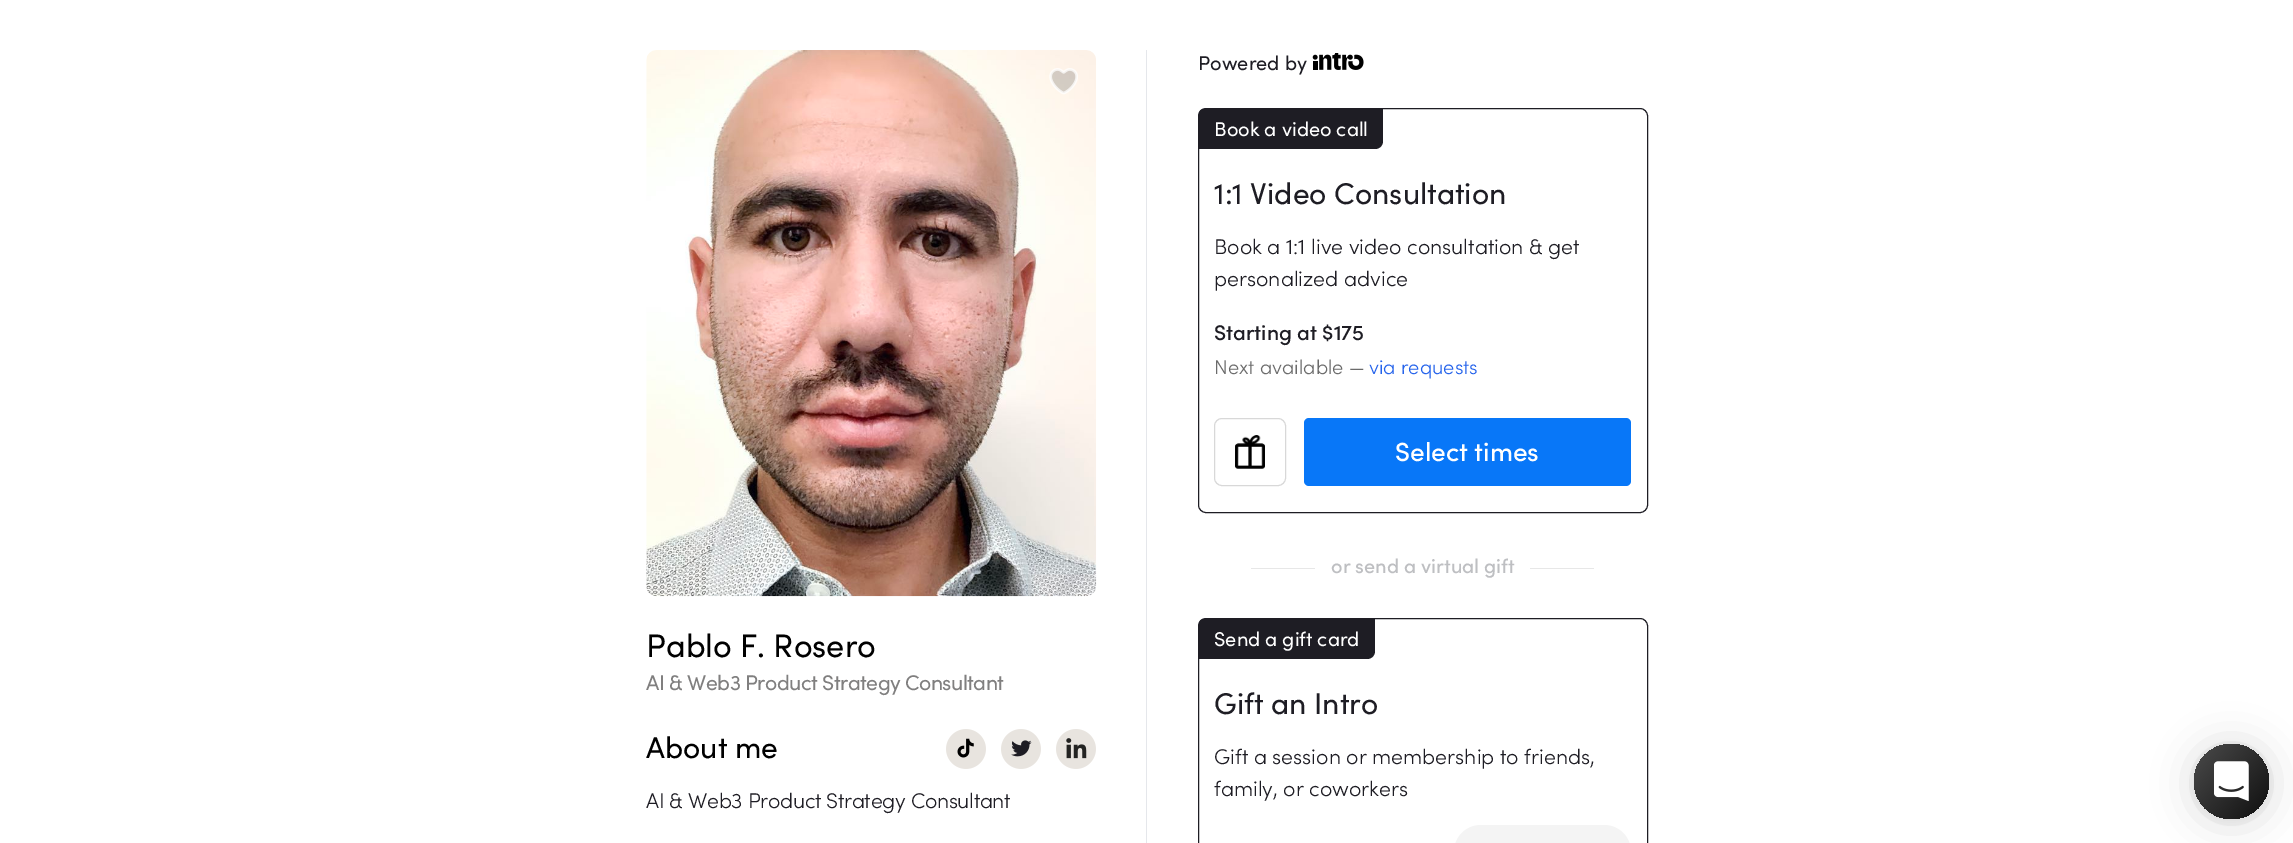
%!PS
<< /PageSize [2293 843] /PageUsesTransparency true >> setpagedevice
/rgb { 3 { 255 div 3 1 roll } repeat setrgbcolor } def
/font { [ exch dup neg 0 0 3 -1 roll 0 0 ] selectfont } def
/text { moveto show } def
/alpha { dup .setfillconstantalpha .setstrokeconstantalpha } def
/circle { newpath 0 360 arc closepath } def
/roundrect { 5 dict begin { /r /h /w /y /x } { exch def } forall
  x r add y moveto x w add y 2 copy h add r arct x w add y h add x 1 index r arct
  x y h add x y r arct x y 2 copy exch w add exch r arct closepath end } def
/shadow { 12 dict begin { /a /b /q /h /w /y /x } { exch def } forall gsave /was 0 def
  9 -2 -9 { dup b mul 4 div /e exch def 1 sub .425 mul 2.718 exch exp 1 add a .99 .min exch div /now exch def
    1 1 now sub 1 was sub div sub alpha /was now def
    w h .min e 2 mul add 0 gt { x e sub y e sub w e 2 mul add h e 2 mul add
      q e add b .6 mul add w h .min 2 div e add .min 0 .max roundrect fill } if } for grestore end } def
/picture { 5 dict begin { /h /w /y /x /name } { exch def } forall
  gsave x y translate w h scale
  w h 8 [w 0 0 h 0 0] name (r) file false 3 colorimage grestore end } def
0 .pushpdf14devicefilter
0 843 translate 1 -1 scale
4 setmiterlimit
255 255 255 rgb
0 0 2293 843 rectfill
(img_01.rgb) 646 50 451 547 picture
(img_02.rgb) 1049 68 29 27 picture
(img_03.rgb) 946 729 40 40 picture
(img_04.rgb) 1001 729 40 40 picture
(img_05.rgb) 1056 729 40 40 picture
229 231 235 rgb
1146 50 1 793 rectfill
(img_06.rgb) 1312 53 52 17 picture
30 29 36 rgb
1198.5 108.5 449 404 7.5 roundrect stroke
1204 109 moveto 179 0 rlineto 0 32 rlineto 0 4.5 -3.5 8 -8 8 rcurveto -176 0 rlineto 0 -35 rlineto 0 -3 2 -5 5 -5 rcurveto closepath fill
216 216 216 rgb
1214.5 418.5 71 67 7.5 roundrect stroke
(img_07.rgb) 1235 435 30 34 picture
8 119 248 rgb
1304 418 327 68 5 roundrect fill
231 231 231 rgb
1251 568 64 1 rectfill
1530 568 64 1 rectfill
30 29 36 rgb
1198.5 618.5 449 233 7.5 roundrect stroke
1204 619 moveto 171 0 rlineto 0 32 rlineto 0 4.5 -3.5 8 -8 8 rcurveto -168 0 rlineto 0 -35 rlineto 0 -3 2 -5 5 -5 rcurveto closepath fill
244 244 244 rgb
1481 825 moveto 123 0 rlineto 15 0 27 12 27 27 rcurveto 0 -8 rlineto -177 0 rlineto 0 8 rlineto 0 -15 12 -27 27 -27 rcurveto closepath fill
0 0 0 rgb
2194 746 75 75 37.5 20 0.16 shadow
2194 745 75 75 37.5 4 0.06 shadow
gsave 2231.5 781.5 37.5 circle clip newpath
<< /ShadingType 2 /ColorSpace /DeviceRGB /Coords [2191 747 2272 815] /Extend [true true] /Function << /FunctionType 2 /Domain [0 1] /C0 [0.294 0.294 0.294] /C1 [0.059 0.059 0.059] /N 1 >> >> shfill grestore
(img_08.rgb) 2214 761 35 40 picture
/Sofia-Regular 32.5 font
(Pablo F. Rosero) 646 657 text
/Sofia-Regular 21.25 font
128 127 127 rgb
646 690 moveto -0.55 0 (AI & Web3 Product Strategy Consultant) ashow
/Sofia-Regular 30 font
0 0 0 rgb
(About me) 646 758 text
/Sofia-Light 21.25 font
30 29 36 rgb
646 808 moveto -0.3 0 (AI & Web3 Product Strategy Consultant) ashow
/Sofia-Regular 20 font
(Powered by) 1198 70 text
255 255 255 rgb
(Book a video call) 1214 136 text
/Sofia-Regular 30 font
30 29 36 rgb
(1:1 Video Consultation) 1214 204 text
/Sofia-Light 21.25 font
(Book a 1:1 live video consultation & get) 1214 254 text
(personalized advice) 1214 286 text
/Sofia-Medium 21.25 font
(Starting at $175) 1214 340 text
/Sofia-Light 20 font
107 107 107 rgb
(Next available —) 1214 374 text
37 99 235 rgb
(via requests) 1369 374 text
/Sofia-Medium 26.25 font
255 255 255 rgb
(Select times) 1395 461 text
/Sofia-Medium 20 font
190 191 194 rgb
(or send a virtual gift) 1331 573 text
/Sofia-Regular 20 font
255 255 255 rgb
(Send a gift card) 1214 646 text
/Sofia-Regular 30 font
30 29 36 rgb
(Gift an Intro) 1214 714 text
/Sofia-Light 21.25 font
(Gift a session or membership to friends,) 1214 764 text
(family, or coworkers) 1214 796 text
.poppdf14devicefilter showpage
